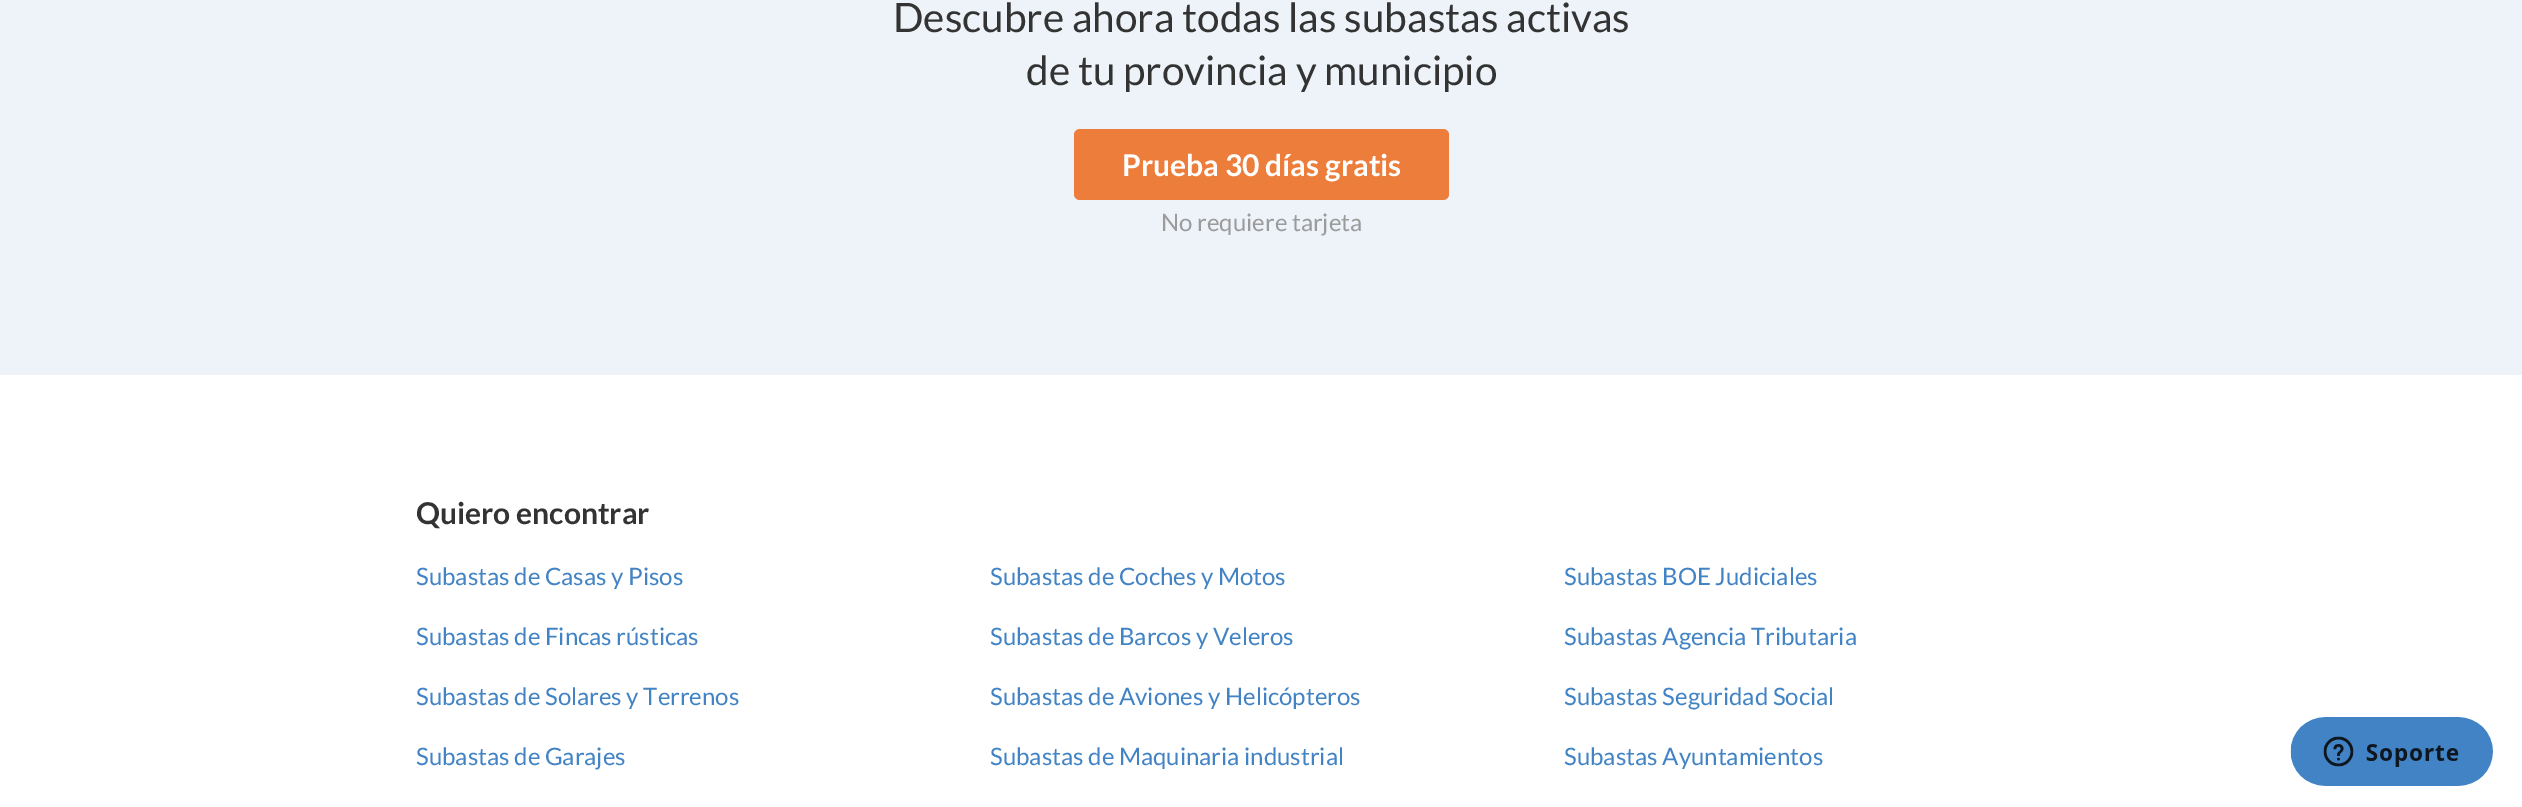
%!PS
<< /PageSize [2522 807] >> setpagedevice
/rgb { 3 { 255 div 3 1 roll } repeat setrgbcolor } def
/font { [ exch dup neg 0 0 3 -1 roll 0 0 ] selectfont } def
/text { moveto show } def
/roundrect { 5 dict begin { /r /h /w /y /x } { exch def } forall
  x r add y moveto x w add y 2 copy h add r arct x w add y h add x 1 index r arct
  x y h add x y r arct x y 2 copy exch w add exch r arct closepath end } def
/picture { 5 dict begin { /h /w /y /x /name } { exch def } forall
  gsave x y translate w h scale
  w h 8 [w 0 0 h 0 0] name (r) file false 3 colorimage grestore end } def
0 807 translate 1 -1 scale
4 setmiterlimit
255 255 255 rgb
0 0 2522 807 rectfill
237 243 249 rgb
0 0 2522 375 rectfill
237 125 58 rgb
1074 129 375 71 6 roundrect fill
(img_01.rgb) 2290 717 203 69 picture
/Lato-Regular 40.5 font
51 51 51 rgb
(Descubre ahora todas las subastas activas) 893 32 text
(de tu provincia y municipio) 1026 85 text
/Lato-Bold 30 font
255 255 255 rgb
(Prueba 30 días gratis) 1122 176 text
/Lato-Regular 24 font
155 155 155 rgb
(No requiere tarjeta) 1161 231 text
/Lato-Bold 30 font
51 51 51 rgb
(Quiero encontrar) 416 524 text
/Lato-Regular 24 font
65 131 196 rgb
(Subastas de Casas y Pisos) 416 585 text
(Subastas de Fincas rústicas) 416 645 text
(Subastas de Solares y Terrenos) 416 705 text
(Subastas de Garajes) 416 765 text
(Subastas de Coches y Motos) 990 585 text
(Subastas de Barcos y Veleros) 990 645 text
(Subastas de Aviones y Helicópteros) 990 705 text
(Subastas de Maquinaria industrial) 990 765 text
(Subastas BOE Judiciales) 1564 585 text
(Subastas Agencia Tributaria) 1564 645 text
(Subastas Seguridad Social) 1564 705 text
(Subastas Ayuntamientos) 1564 765 text
showpage
